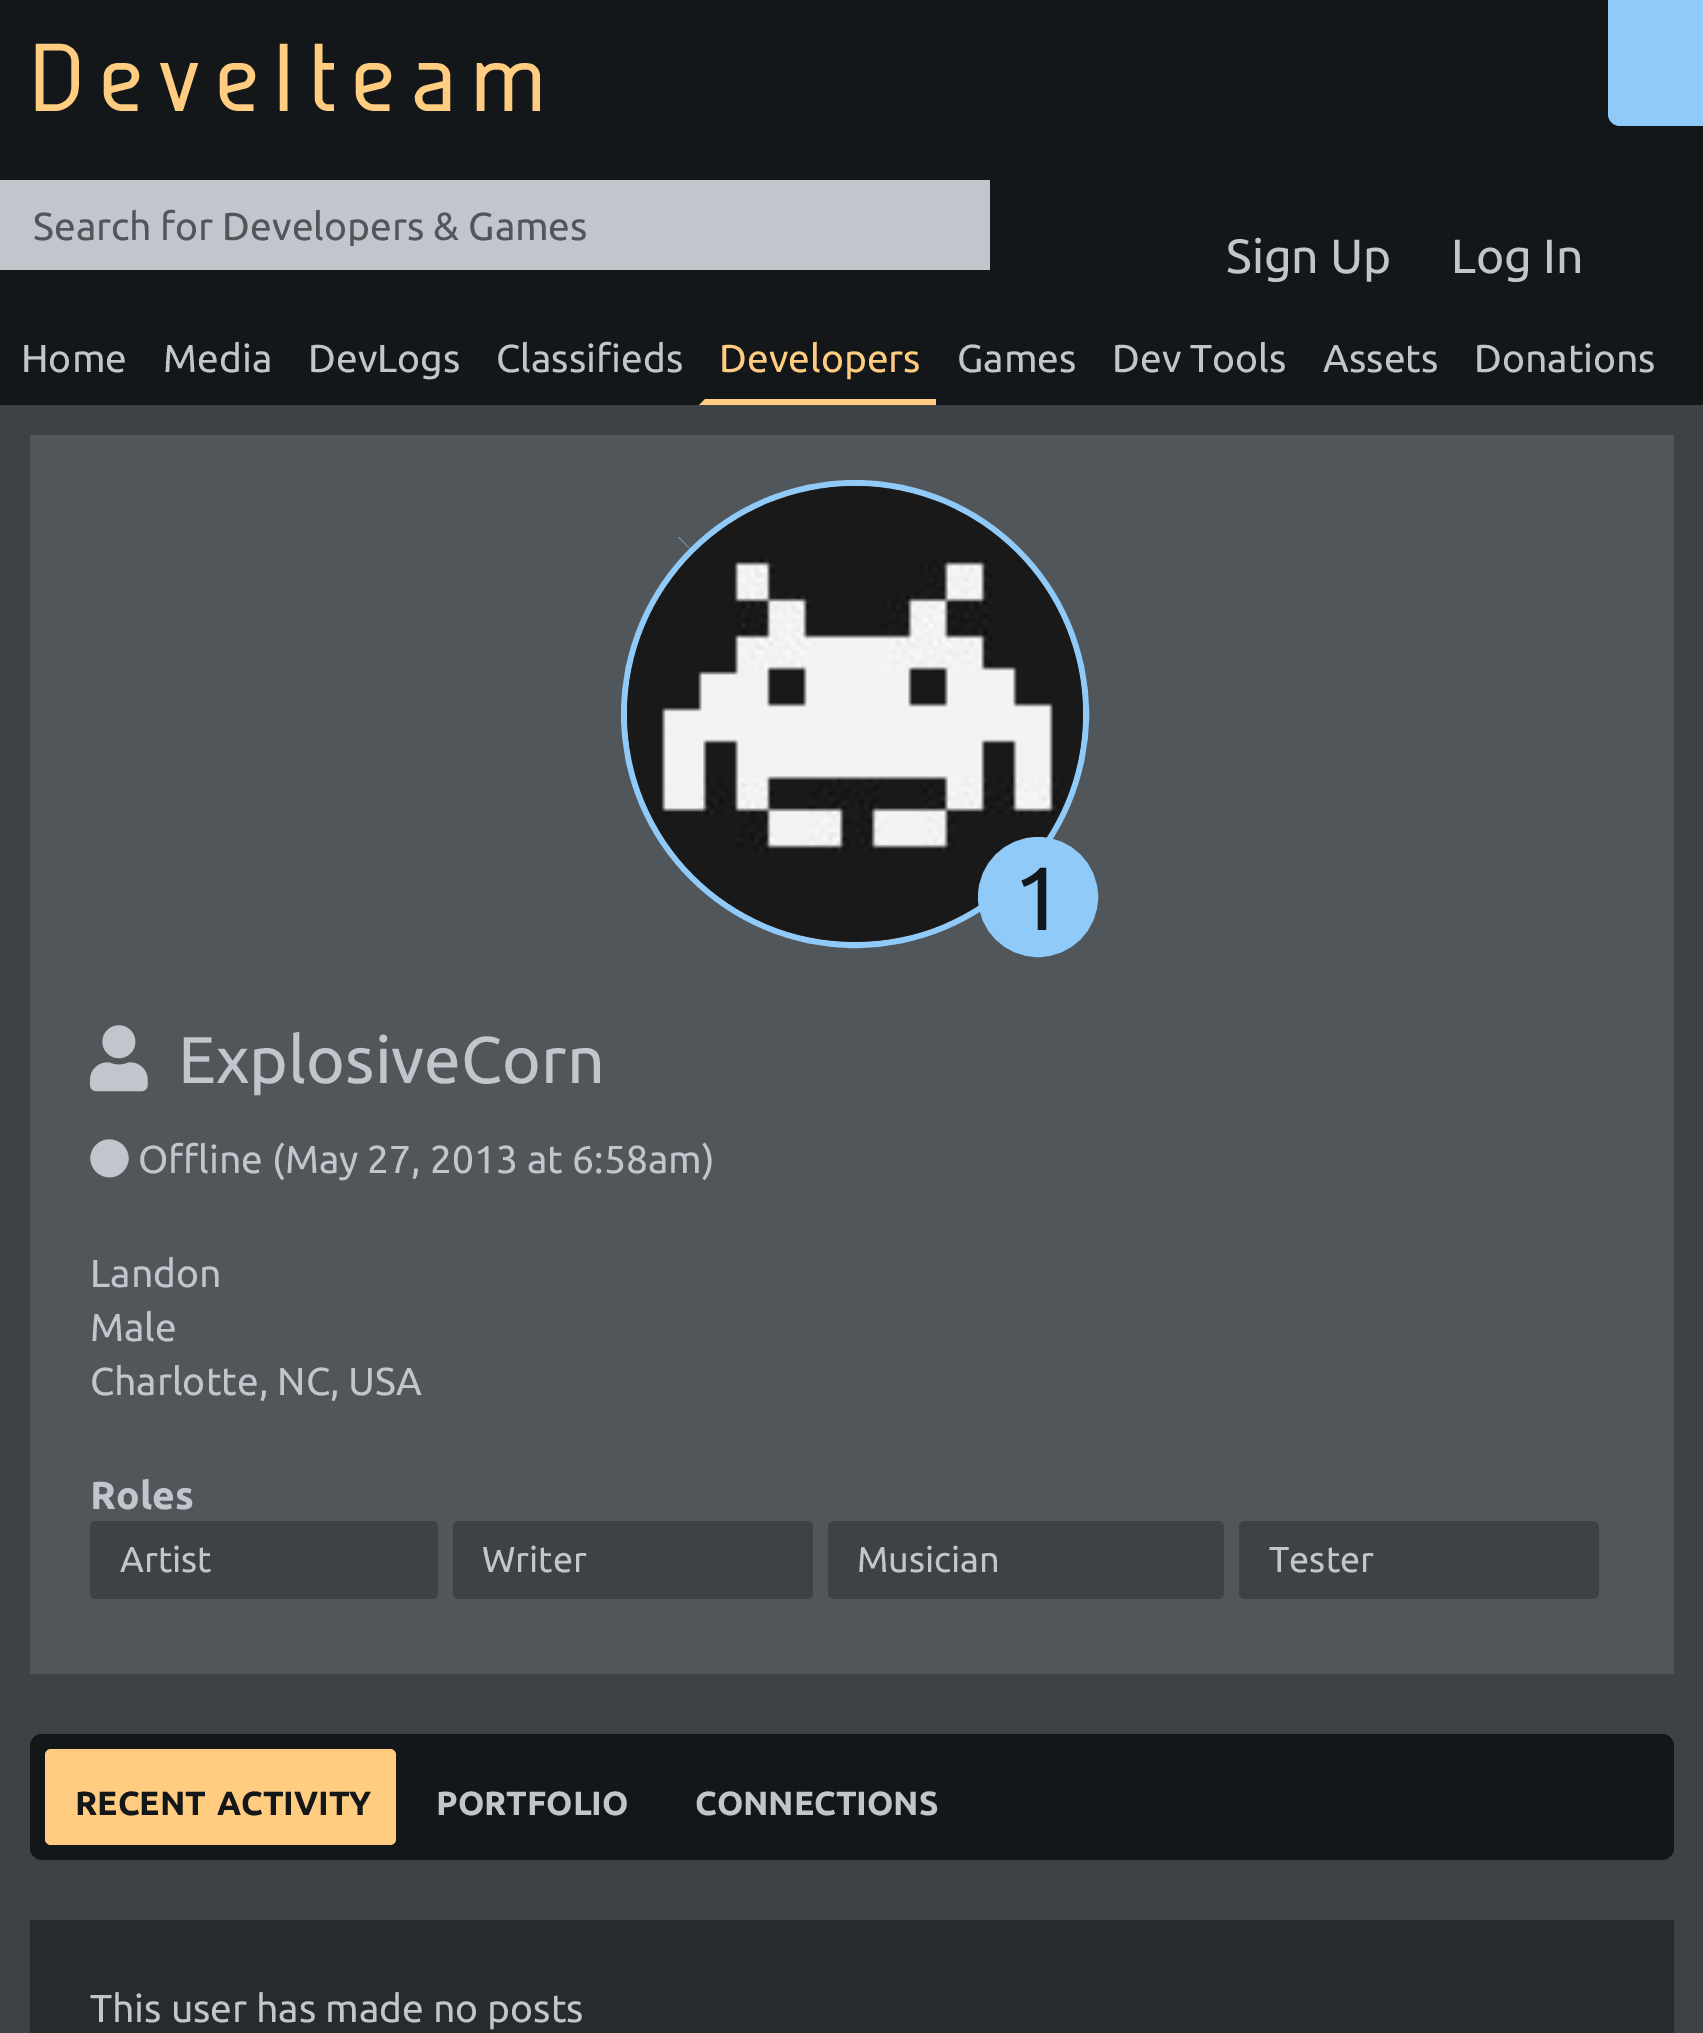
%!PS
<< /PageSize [1703 2033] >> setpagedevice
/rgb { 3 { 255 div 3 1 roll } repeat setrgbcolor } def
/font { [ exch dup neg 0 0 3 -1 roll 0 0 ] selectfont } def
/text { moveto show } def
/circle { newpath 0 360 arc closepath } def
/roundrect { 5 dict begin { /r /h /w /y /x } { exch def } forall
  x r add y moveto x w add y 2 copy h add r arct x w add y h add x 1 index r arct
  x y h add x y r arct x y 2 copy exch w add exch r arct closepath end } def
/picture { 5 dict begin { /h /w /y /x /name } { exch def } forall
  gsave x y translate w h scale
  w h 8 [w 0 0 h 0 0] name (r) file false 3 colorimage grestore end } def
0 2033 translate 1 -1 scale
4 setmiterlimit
62 66 70 rgb
0 0 1703 2033 rectfill
20 23 25 rgb
0 0 1703 405 rectfill
195 197 204 rgb
0 180 990 90 rectfill
144 202 249 rgb
1608 0 moveto 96 0 rlineto 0 126 rlineto -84 0 rlineto -6.5 0 -12 -5.5 -12 -12 rcurveto closepath fill
255 204 128 rgb
936 405 moveto -237 0 rlineto 6 -6 rlineto 231 0 rlineto closepath fill
81 86 91 rgb
30 435 1644 1239 rectfill
144 202 249 rgb
60 setlinewidth
[0 30000] 0 setdash
699.5 558.5 moveto 84 -84.5 221 -84.5 305 0 rcurveto 84.5 84 84.5 221 0 305 rcurveto -84 84.5 -221 84.5 -305 0 rcurveto -84.5 -84 -84.5 -221 0 -305 rcurveto closepath stroke
68 68 68 rgb
855 714 231 circle gsave fill grestore
144 202 249 rgb
6 setlinewidth
[] 0 setdash
stroke
(img_01.rgb) 627 486 456 456 picture
1038 897 55.5 circle gsave fill grestore
9 setlinewidth
stroke
(img_02.rgb) 90 1025 58 67 picture
195 197 204 rgb
96 1145 moveto 12.5 -12.5 34 -2.5 32.5 15.5 rcurveto -0.5 4 -2.5 8 -5.5 11 rcurveto -12.5 13 -34 2.5 -32.5 -15 rcurveto 0.5 -4.5 2.5 -8.5 5.5 -11.5 rcurveto closepath fill
62 66 70 rgb
90 1521 348 78 6 roundrect fill
453 1521 360 78 6 roundrect fill
828 1521 396 78 6 roundrect fill
1239 1521 360 78 6 roundrect fill
20 23 25 rgb
30 1734 1644 126 12 roundrect fill
255 204 128 rgb
45 1749 351 96 6 roundrect fill
40 43 46 rgb
30 1920 1644 113 rectfill
/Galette-Medium 96 font
255 204 128 rgb
30 111 moveto 15 0 (Develteam) ashow
gsave
33 204 924 42 rectclip
/Ubuntu-Regular 39 font
81 86 91 rgb
(Search for Developers & Games) 33 240 text
grestore
/Ubuntu-Regular 48 font
195 197 204 rgb
(Sign Up) 1226 273 text
(Log In) 1451 273 text
/Ubuntu-Regular 39 font
(Home) 21 372 text
(Media) 163 372 text
(DevLogs) 308 372 text
(Classifieds) 496 372 text
255 204 128 rgb
(Developers) 719 372 text
195 197 204 rgb
(Games) 957 372 text
(Dev Tools) 1112 372 text
(Assets) 1323 372 text
(Donations) 1474 372 text
/Ubuntu-Regular 90 font
20 23 25 rgb
(1) 1013 930 text
/Ubuntu-Regular 66 font
195 197 204 rgb
(ExplosiveCorn) 178 1083 text
/Ubuntu-Regular 39 font
(Offline \(May 27, 2013 at 6:58am\)) 138 1173 text
(Landon) 90 1287 text
(Male) 90 1341 text
(Charlotte, NC, USA) 90 1395 text
/Ubuntu-Bold 39 font
(Roles) 90 1509 text
/Ubuntu-Regular 36 font
(Artist) 120 1572 text
(Writer) 482 1572 text
(Musician) 857 1572 text
(Tester) 1269 1572 text
/Ubuntu-Bold 33.5 font
20 23 25 rgb
(RECENT) 75 1815 text
(ACTIVITY) 217 1815 text
195 197 204 rgb
(PORTFOLIO) 436 1815 text
(CONNECTIONS) 695 1815 text
/Ubuntu-Regular 39 font
(This user has made no posts) 90 2022 text
showpage
